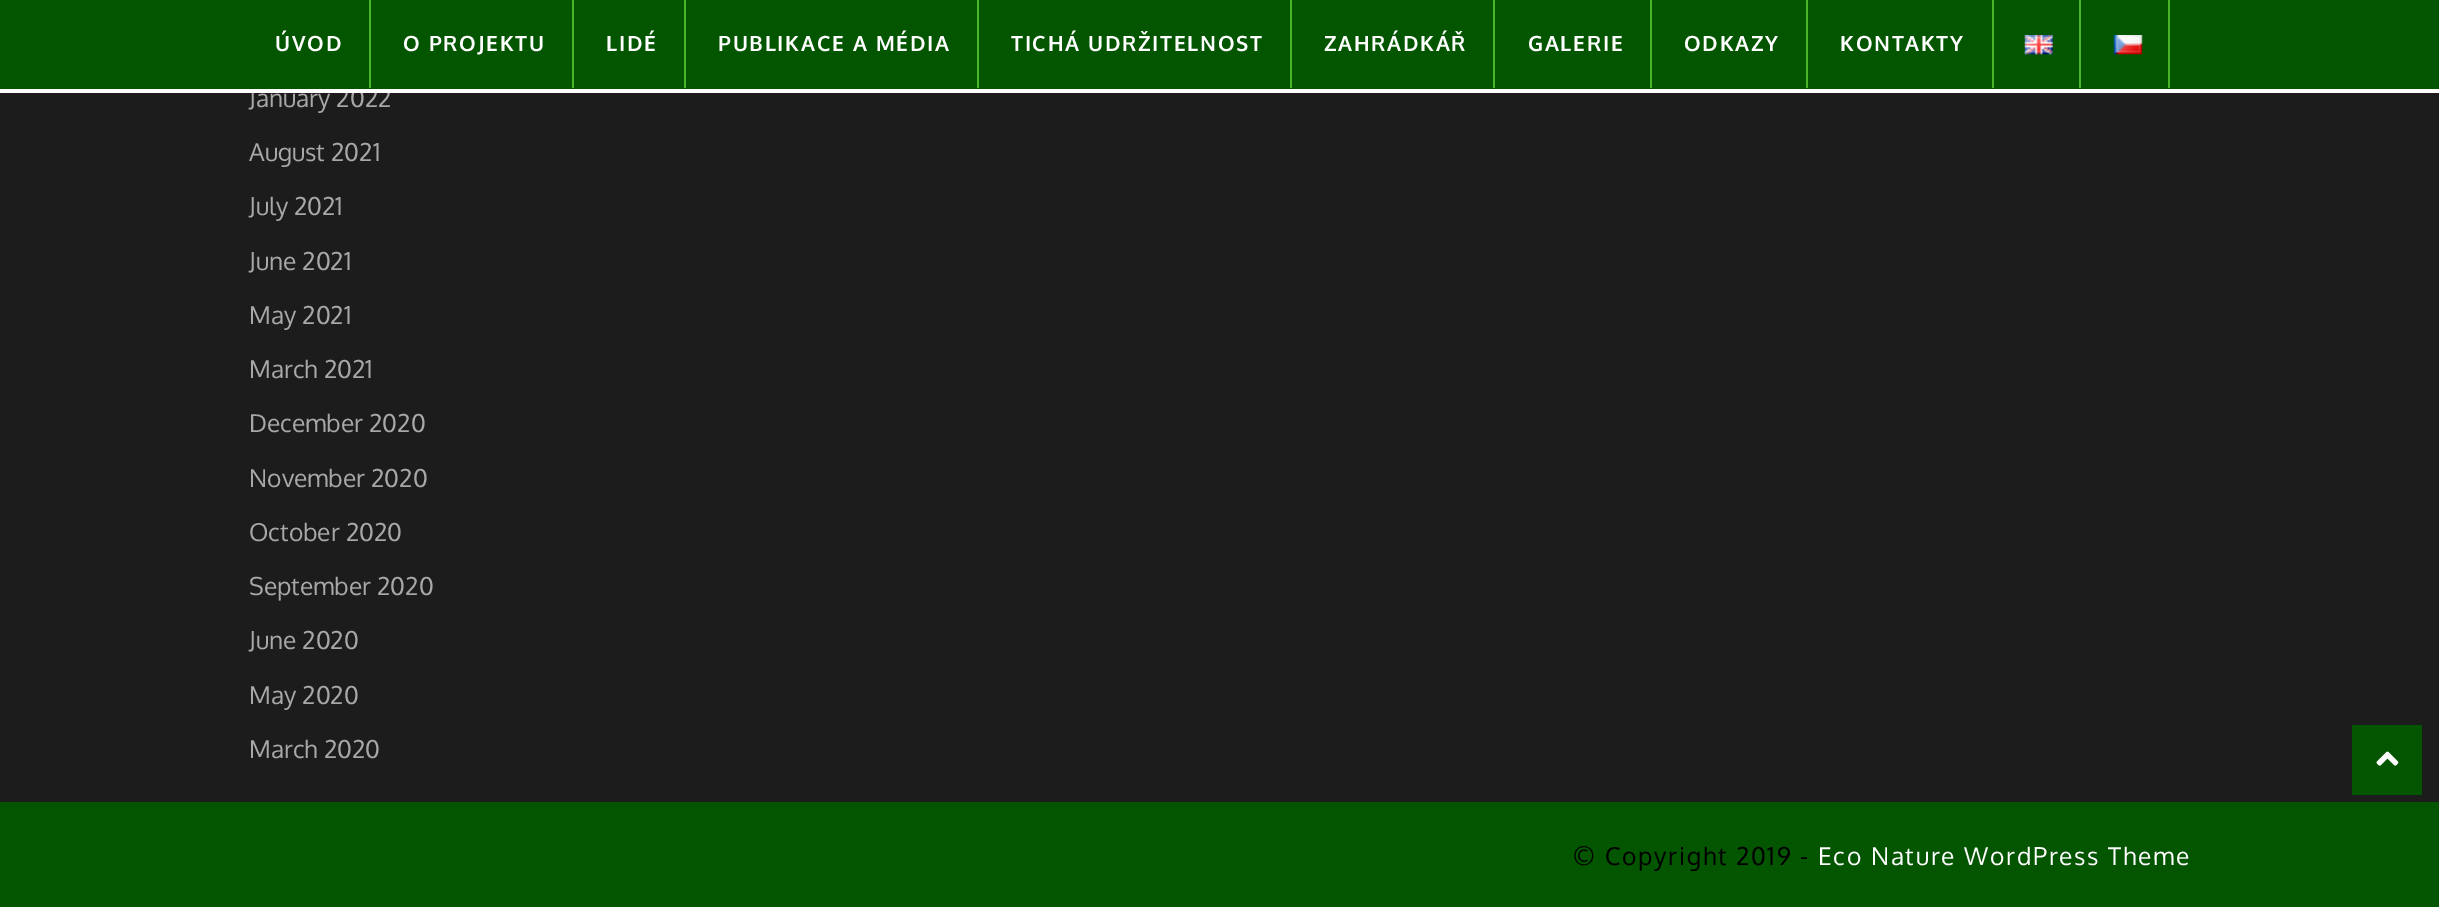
%!PS
<< /PageSize [2439 907] >> setpagedevice
/rgb { 3 { 255 div 3 1 roll } repeat setrgbcolor } def
/font { [ exch dup neg 0 0 3 -1 roll 0 0 ] selectfont } def
/text { moveto show } def
/picture { 5 dict begin { /h /w /y /x /name } { exch def } forall
  gsave x y translate w h scale
  w h 8 [w 0 0 h 0 0] name (r) file false 3 colorimage grestore end } def
0 907 translate 1 -1 scale
4 setmiterlimit
28 28 28 rgb
0 0 2439 907 rectfill
3 85 0 rgb
0 802 2439 105 rectfill
2352 725 70 70 rectfill
(img_03.rgb) 2376 751 23 15 picture
/Oxygen-Regular 24.5 font
168 168 168 rgb
(January 2022) 249 107 text
3 85 0 rgb
0 0 2439 89 rectfill
(img_02.rgb) 2113 35 30 20 picture
72 180 42 rgb
2168 0 2 88 rectfill
(img_01.rgb) 2024 35 29 20 picture
2079 0 2 88 rectfill
/Oxygen-Bold 21 font
255 255 255 rgb
1840 51 moveto 1.75 0 (KONTAKTY) ashow
72 180 42 rgb
1992 0 2 88 rectfill
255 255 255 rgb
1684 51 moveto 1.75 0 (ODKAZY) ashow
72 180 42 rgb
1806 0 2 88 rectfill
255 255 255 rgb
1528 51 moveto 1.75 0 (GALERIE) ashow
72 180 42 rgb
1650 0 2 88 rectfill
255 255 255 rgb
1324 51 moveto 1.75 0 (ZAHRÁDKÁŘ) ashow
72 180 42 rgb
1493 0 2 88 rectfill
255 255 255 rgb
1011 51 moveto 1.75 0 (TICHÁ UDRŽITELNOST) ashow
72 180 42 rgb
1290 0 2 88 rectfill
255 255 255 rgb
718 51 moveto 1.75 0 (PUBLIKACE A MÉDIA) ashow
72 180 42 rgb
977 0 2 88 rectfill
255 255 255 rgb
606 51 moveto 1.75 0 (LIDÉ) ashow
72 180 42 rgb
684 0 2 88 rectfill
255 255 255 rgb
403 51 moveto 1.75 0 (O PROJEKTU) ashow
72 180 42 rgb
572 0 2 88 rectfill
255 255 255 rgb
275 51 moveto 1.75 0 (ÚVOD) ashow
72 180 42 rgb
369 0 2 88 rectfill
255 255 255 rgb
0 89 2439 4 rectfill
/Oxygen-Regular 24.5 font
168 168 168 rgb
(August 2021) 249 161 text
(July 2021) 249 215 text
(June 2021) 249 270 text
(May 2021) 249 324 text
(March 2021) 249 378 text
(December 2020) 249 432 text
(November 2020) 249 487 text
(October 2020) 249 541 text
(September 2020) 249 595 text
(June 2020) 249 649 text
(May 2020) 249 704 text
(March 2020) 249 758 text
0 0 0 rgb
1573 865 moveto 1.75 0 (© Copyright 2019 -) ashow
255 255 255 rgb
1818 865 moveto 1.75 0 (Eco Nature WordPress Theme) ashow
showpage
